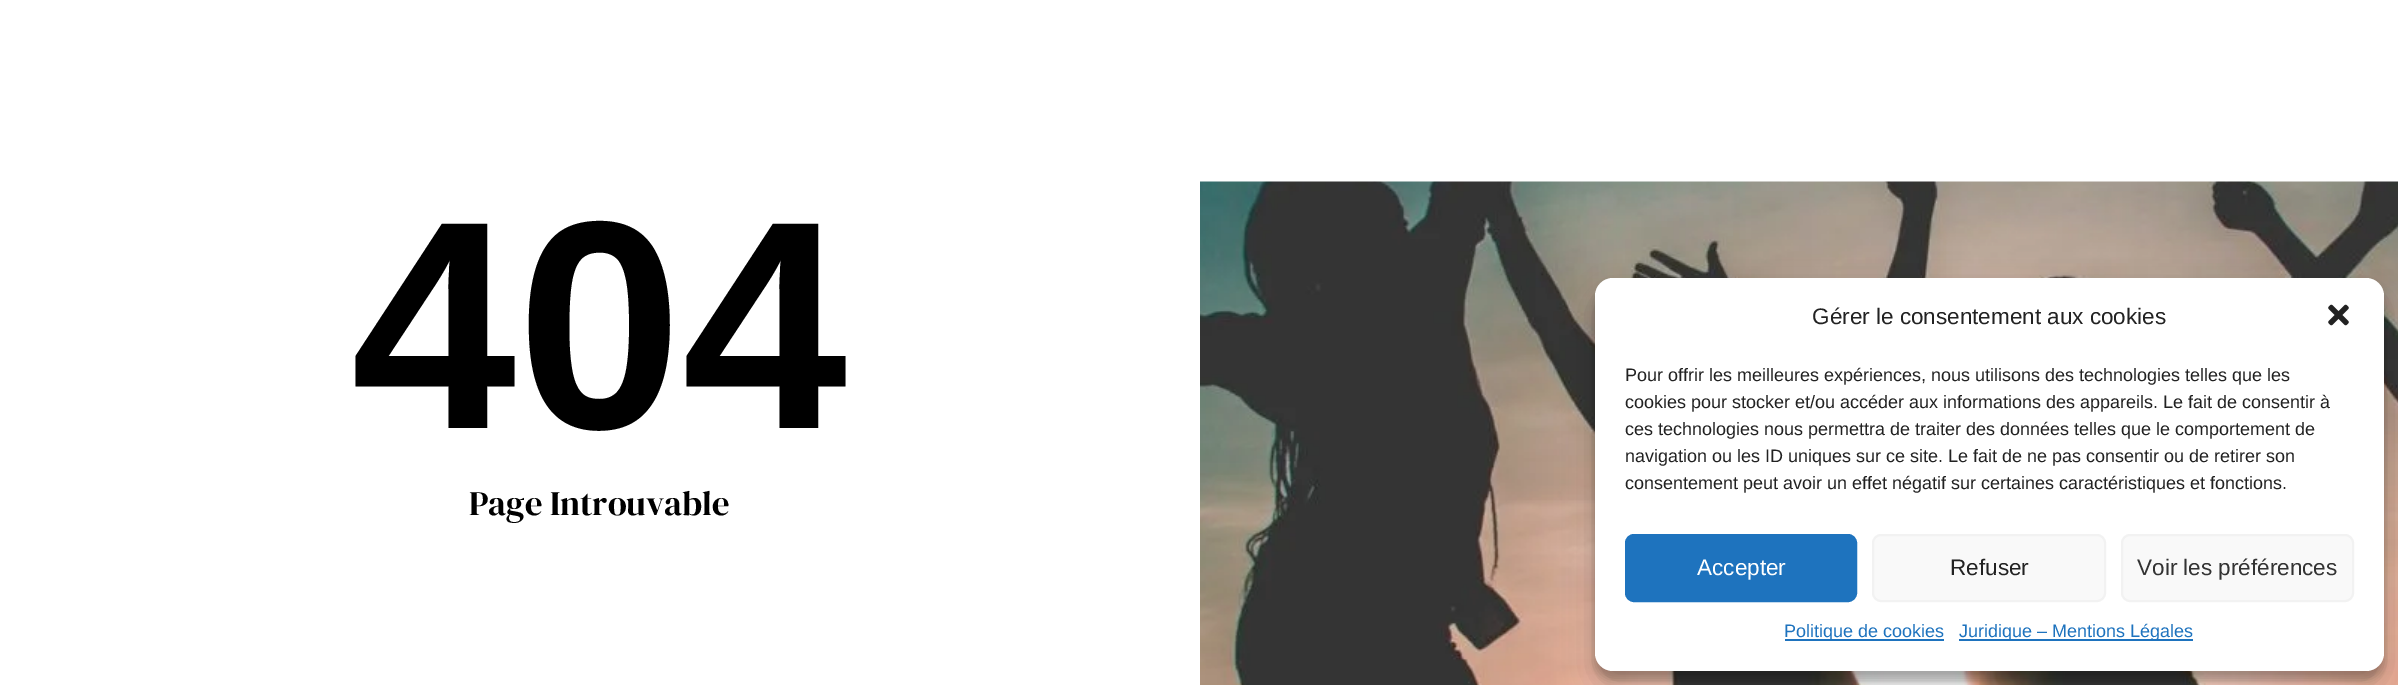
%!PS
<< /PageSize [2398 685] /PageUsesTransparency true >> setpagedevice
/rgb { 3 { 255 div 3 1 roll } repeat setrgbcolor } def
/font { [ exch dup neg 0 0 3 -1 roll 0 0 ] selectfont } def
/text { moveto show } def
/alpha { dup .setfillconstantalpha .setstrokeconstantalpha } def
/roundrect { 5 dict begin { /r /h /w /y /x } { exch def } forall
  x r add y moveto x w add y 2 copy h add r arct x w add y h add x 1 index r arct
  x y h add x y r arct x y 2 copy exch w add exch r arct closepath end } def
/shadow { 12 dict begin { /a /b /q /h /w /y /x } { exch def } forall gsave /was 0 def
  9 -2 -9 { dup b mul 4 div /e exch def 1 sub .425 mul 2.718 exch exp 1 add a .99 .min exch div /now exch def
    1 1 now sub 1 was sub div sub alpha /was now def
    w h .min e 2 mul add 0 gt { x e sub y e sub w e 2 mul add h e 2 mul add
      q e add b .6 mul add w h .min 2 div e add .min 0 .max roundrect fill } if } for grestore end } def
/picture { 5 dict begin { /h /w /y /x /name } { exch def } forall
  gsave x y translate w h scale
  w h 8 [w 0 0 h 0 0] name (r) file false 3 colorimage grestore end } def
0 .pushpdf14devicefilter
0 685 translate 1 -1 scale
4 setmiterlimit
255 255 255 rgb
0 0 2398 685 rectfill
(img_01.rgb) 1200 181 1198 504 picture
0 0 0 rgb
1595 287 789 393 18 4.5 0.23 shadow
1595 293 789 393 18 15 0.19 shadow
255 255 255 rgb
1595 278 789 393 18 roundrect fill
(img_02.rgb) 2328 304 21 22 picture
30 115 190 rgb
1626 535 230 66 8 roundrect gsave fill grestore
2 setlinewidth
stroke
249 249 249 rgb
1873 535 232 66 8 roundrect gsave fill grestore
242 242 242 rgb
stroke
249 249 249 rgb
2122 535 231 66 8 roundrect gsave fill grestore
242 242 242 rgb
stroke
30 115 190 rgb
1785 639 159 2 rectfill
1959 639 234 2 rectfill
/LiberationSans-Bold 298 font
0 0 0 rgb
(404) 351 428 text
/DMSerifDisplay-Regular 34.5 font
(Page Introuvable) 469 515 text
/LiberationSans-Regular 22.5 font
34 34 34 rgb
(Gérer le consentement aux cookies) 1812 324 text
/LiberationSans-Regular 18 font
(Pour offrir les meilleures expériences, nous utilisons des technologies telles que les) 1625 381 text
(cookies pour stocker et/ou accéder aux informations des appareils. Le fait de consentir à) 1625 408 text
(ces technologies nous permettra de traiter des données telles que le comportement de) 1625 435 text
(navigation ou les ID uniques sur ce site. Le fait de ne pas consentir ou de retirer son) 1625 462 text
(consentement peut avoir un effet négatif sur certaines caractéristiques et fonctions.) 1625 489 text
/LiberationSans-Regular 22.5 font
255 255 255 rgb
(Accepter) 1697 575 text
34 34 34 rgb
(Refuser) 1950 575 text
51 51 51 rgb
(Voir les préférences) 2137 575 text
/LiberationSans-Regular 18 font
30 115 190 rgb
(Politique de cookies) 1784 637 text
(Juridique – Mentions Légales) 1959 637 text
.poppdf14devicefilter showpage
